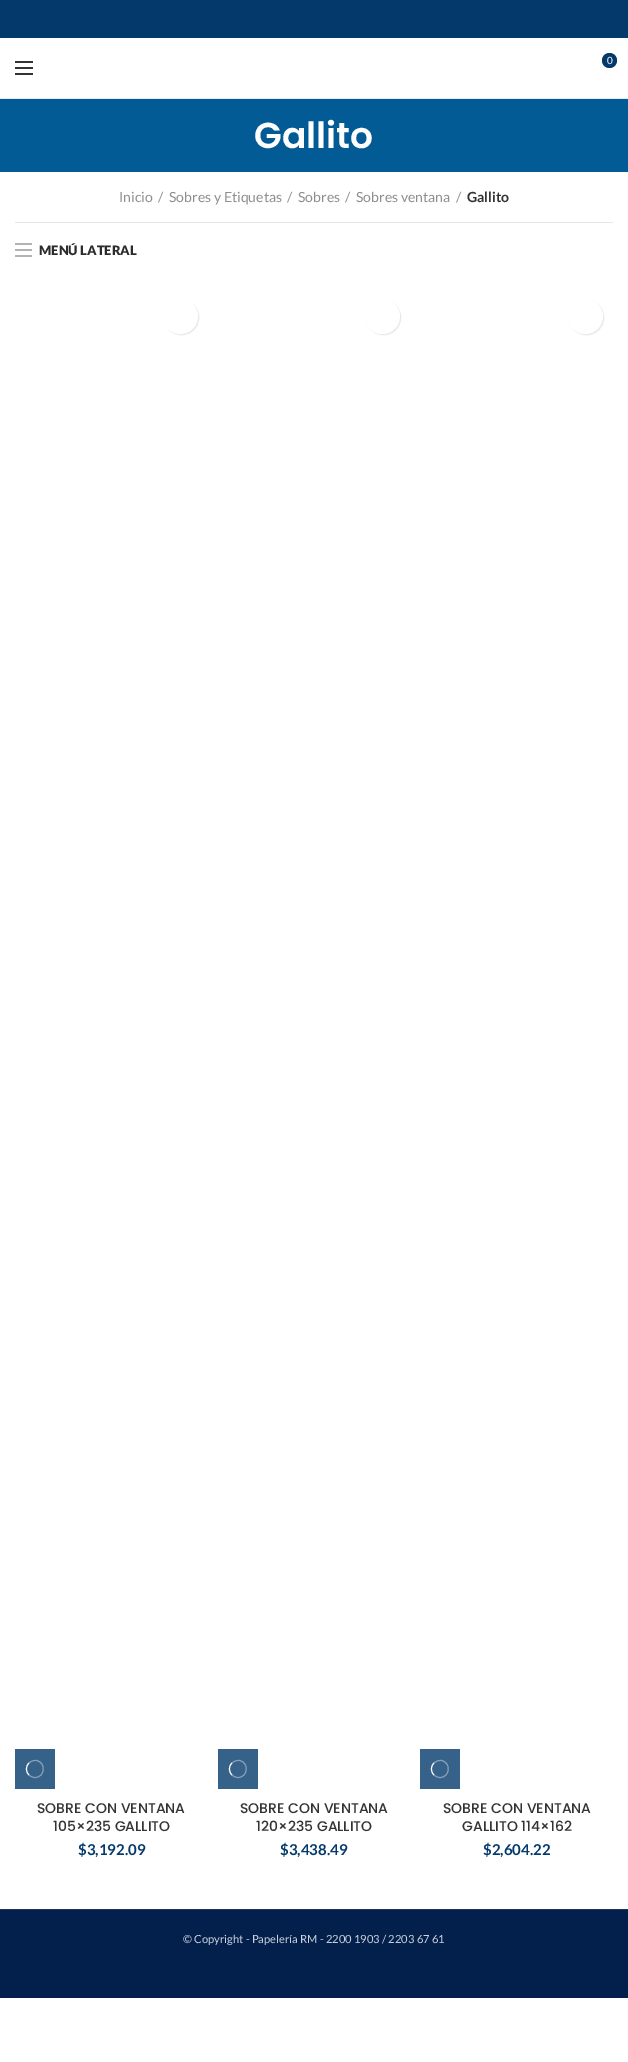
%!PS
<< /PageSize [628 2062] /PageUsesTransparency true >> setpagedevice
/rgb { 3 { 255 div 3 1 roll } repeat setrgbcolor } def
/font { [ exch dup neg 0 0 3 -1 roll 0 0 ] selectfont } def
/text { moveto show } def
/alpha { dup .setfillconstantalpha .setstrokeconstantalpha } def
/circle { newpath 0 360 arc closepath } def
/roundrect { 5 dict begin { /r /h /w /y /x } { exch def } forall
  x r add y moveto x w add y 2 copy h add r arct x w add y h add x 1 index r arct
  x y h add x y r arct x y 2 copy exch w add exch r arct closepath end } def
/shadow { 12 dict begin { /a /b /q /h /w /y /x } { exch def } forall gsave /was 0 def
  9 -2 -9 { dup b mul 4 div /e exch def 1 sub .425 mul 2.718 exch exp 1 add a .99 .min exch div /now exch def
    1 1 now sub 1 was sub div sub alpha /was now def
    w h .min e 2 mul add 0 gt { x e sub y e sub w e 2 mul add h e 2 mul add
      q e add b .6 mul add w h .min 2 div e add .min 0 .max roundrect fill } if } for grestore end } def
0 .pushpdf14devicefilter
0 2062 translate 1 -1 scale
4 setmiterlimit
255 255 255 rgb
0 0 628 2062 rectfill
4 57 108 rgb
0 0 628 38 rectfill
232 232 232 rgb
0 98 628 1 rectfill
51 51 51 rgb
15 67 18 2 rectfill
15 61 18 2 rectfill
15 73 18 2 rectfill
4 57 108 rgb
609.5 60.5 7.5 circle fill
3 91 150 rgb
0 99 628 73 rectfill
230 230 230 rgb
15 222 598 1 rectfill
179 179 179 rgb
15 249 17 2 rectfill
15 243 17 2 rectfill
15 255 17 2 rectfill
0 0 0 rgb
164 300 35 35 17.5 0.5 0.1 shadow
255 255 255 rgb
180.5 316.5 17.5 circle fill
54 97 137 rgb
15 1749 40 40 rectfill
134 160 184 rgb
29 1763 moveto 2 -2 5 -3 7.5 -2.5 rcurveto 10 2 8.5 17 -1.5 17 rcurveto -2 0 -4.5 -1 -6 -2.5 rcurveto stroke
255 255 255 rgb
29 1775 moveto -3.5 -3.5 -3.5 -8.5 0 -12 rcurveto stroke
0 0 0 rgb
366 300 35 35 17.5 0.5 0.1 shadow
255 255 255 rgb
382.5 316.5 17.5 circle fill
54 97 137 rgb
218 1749 40 40 rectfill
134 160 184 rgb
232 1763 moveto 2 -2 5 -3 7.5 -2.5 rcurveto 10 2 8.5 17 -1.5 17 rcurveto -2 0 -4.5 -1 -6 -2.5 rcurveto stroke
255 255 255 rgb
232 1775 moveto -3.5 -3.5 -3.5 -8.5 0 -12 rcurveto stroke
0 0 0 rgb
569 300 35 35 17.5 0.5 0.1 shadow
255 255 255 rgb
585.5 316.5 17.5 circle fill
54 97 137 rgb
420 1749 40 40 rectfill
134 160 184 rgb
434 1763 moveto 2 -2 5 -3 7.5 -2.5 rcurveto 10 2 8.5 17 -1.5 17 rcurveto -2 0 -4.5 -1 -6 -2.5 rcurveto stroke
255 255 255 rgb
434 1775 moveto -3.5 -3.5 -3.5 -8.5 0 -12 rcurveto stroke
3 31 75 rgb
0 1910 628 88 rectfill
28 53 93 rgb
0 1909 628 1 rectfill
/Lato-Regular 10 font
255 255 255 rgb
(0) 607 64 text
/Poppins-SemiBold 36 font
(Gallito) 254 148 text
/Lato-Regular 14 font
142 142 142 rgb
(Inicio) 119 202 text
(/) 158 202 text
(Sobres y Etiquetas) 169 202 text
(/) 287 202 text
(Sobres) 298 202 text
(/) 345 202 text
(Sobres ventana) 356 202 text
(/) 456 202 text
/Lato-Bold 14 font
51 51 51 rgb
(Gallito) 467 202 text
/Lato-Black 13 font
45 42 42 rgb
(MENÚ LATERAL) 39 255 text
/Poppins-Medium 14 font
51 51 51 rgb
(SOBRE CON VENTANA) 37 1813 text
(105×235 GALLITO) 53 1831 text
/Lato-Bold 15 font
4 57 108 rgb
($3,192.09) 78 1855 text
/Poppins-Medium 14 font
51 51 51 rgb
(SOBRE CON VENTANA) 240 1813 text
(120×235 GALLITO) 256 1831 text
/Lato-Bold 15 font
4 57 108 rgb
($3,438.49) 280 1855 text
/Poppins-Medium 14 font
51 51 51 rgb
(SOBRE CON VENTANA) 443 1813 text
(GALLITO 114×162) 462 1831 text
/Lato-Bold 15 font
4 57 108 rgb
($2,604.22) 483 1855 text
/Lato-Regular 11.2 font
205 210 219 rgb
(© Copyright - Papelería RM - 2200 1903 / 2203 67 61) 183 1943 text
.poppdf14devicefilter showpage
